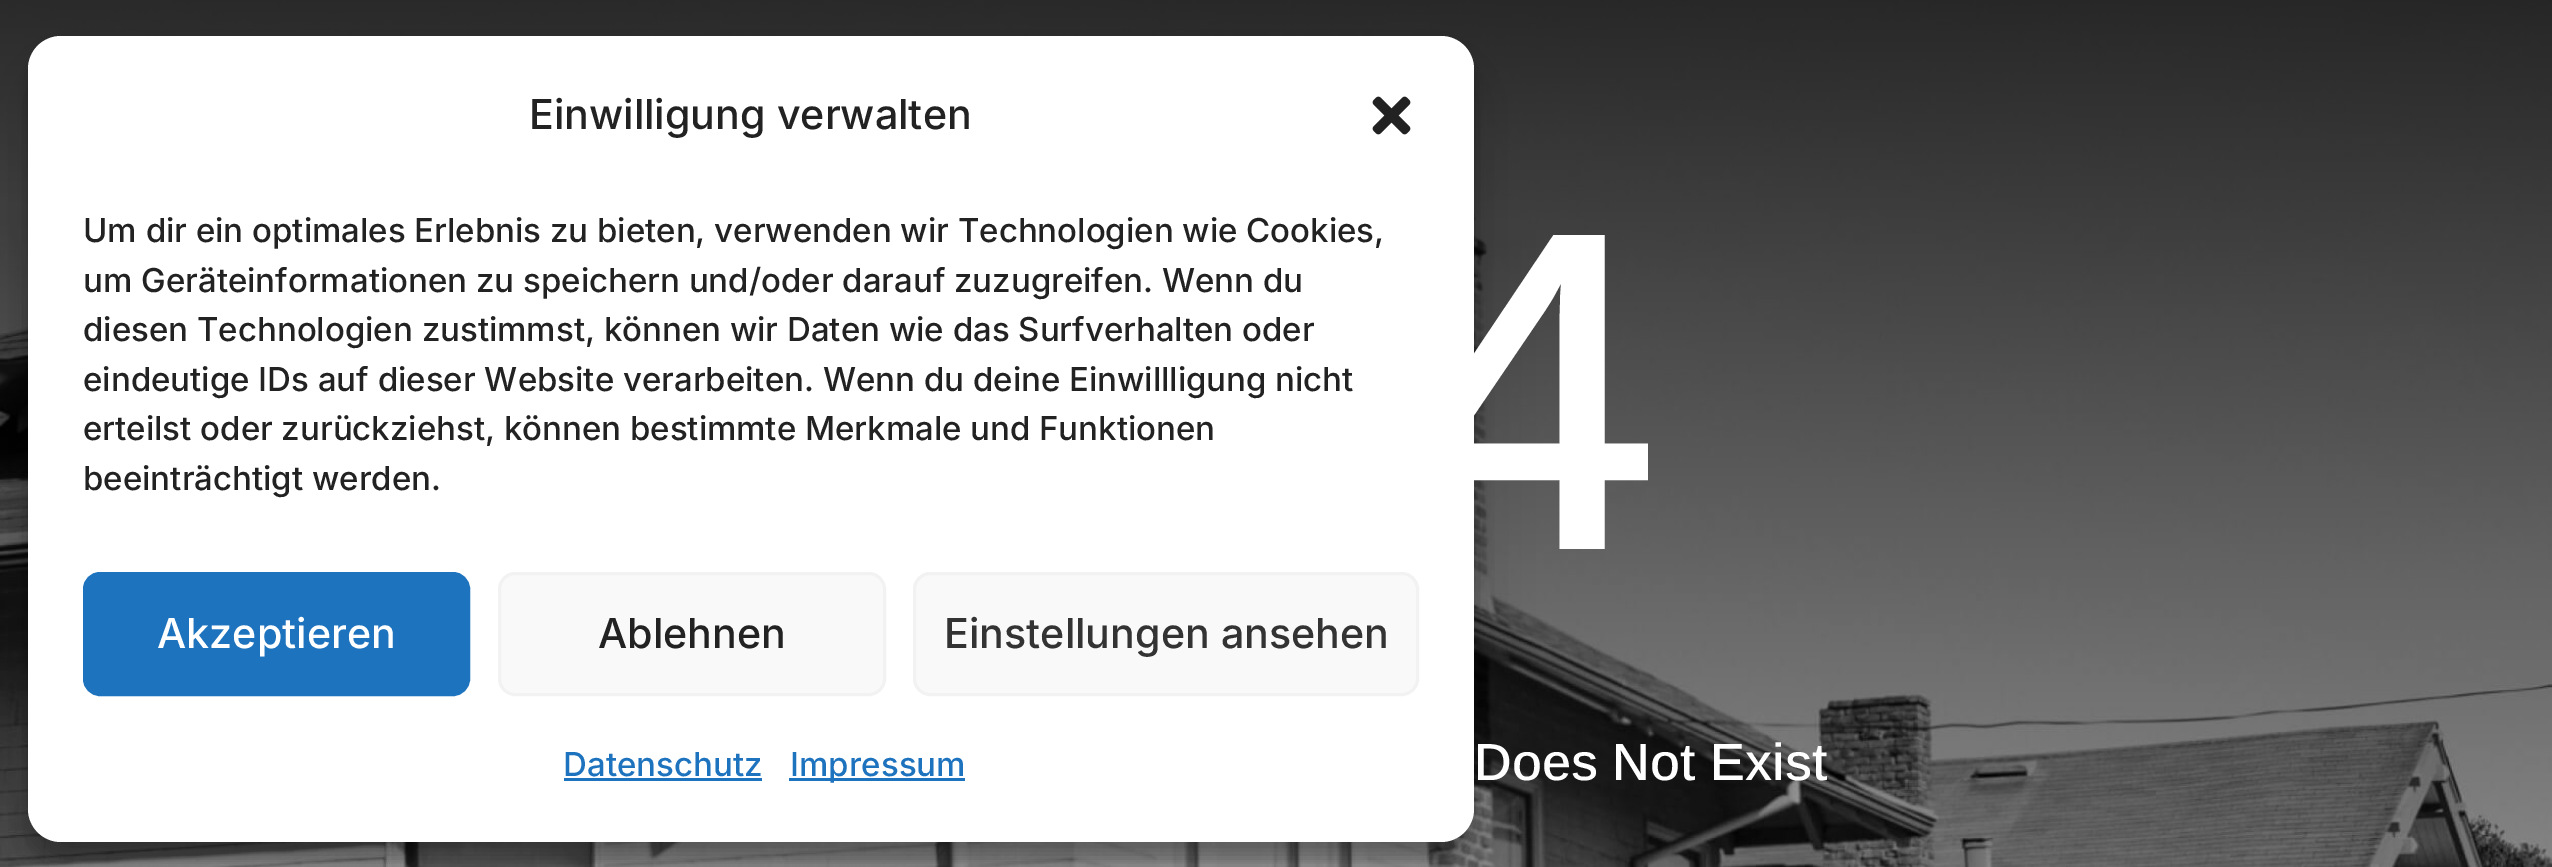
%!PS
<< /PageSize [2552 867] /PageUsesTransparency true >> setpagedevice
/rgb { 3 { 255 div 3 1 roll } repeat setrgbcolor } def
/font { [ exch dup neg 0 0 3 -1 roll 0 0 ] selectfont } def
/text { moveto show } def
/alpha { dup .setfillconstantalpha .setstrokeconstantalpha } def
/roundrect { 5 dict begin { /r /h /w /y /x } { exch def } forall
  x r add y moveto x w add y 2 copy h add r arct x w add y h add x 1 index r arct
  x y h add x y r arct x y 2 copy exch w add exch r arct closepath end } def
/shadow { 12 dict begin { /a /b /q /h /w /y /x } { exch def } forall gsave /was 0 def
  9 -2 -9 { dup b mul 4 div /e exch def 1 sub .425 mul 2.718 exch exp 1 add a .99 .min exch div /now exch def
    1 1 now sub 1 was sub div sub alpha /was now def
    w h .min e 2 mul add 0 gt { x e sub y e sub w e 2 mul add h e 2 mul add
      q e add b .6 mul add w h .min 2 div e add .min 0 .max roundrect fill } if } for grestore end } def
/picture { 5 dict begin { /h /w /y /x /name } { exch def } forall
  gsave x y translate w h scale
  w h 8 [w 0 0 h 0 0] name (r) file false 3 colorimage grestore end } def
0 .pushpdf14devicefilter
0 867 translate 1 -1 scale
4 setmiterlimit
255 255 255 rgb
0 0 2552 867 rectfill
(img_02.rgb) 0 0 2552 867 picture
0 0 0 rgb
28 52 1446 806 33 8 0.23 shadow
28 63 1446 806 33 27.5 0.19 shadow
255 255 255 rgb
28 36 1446 806 33 roundrect fill
(img_01.rgb) 1372 96 39 39 picture
30 115 190 rgb
84.5 573.5 384 121 15.5 roundrect gsave fill grestore
3 setlinewidth
stroke
249 249 249 rgb
499.5 573.5 385 121 15.5 roundrect gsave fill grestore
242 242 242 rgb
stroke
249 249 249 rgb
914.5 573.5 503 121 15.5 roundrect gsave fill grestore
242 242 242 rgb
stroke
30 115 190 rgb
564 778 198 3 rectfill
789 778 176 3 rectfill
/Inter-Medium 41.25 font
34 34 34 rgb
(Einwilligung verwalten) 529 129 text
/Inter-Medium 33 font
(Um dir ein optimales Erlebnis zu bieten, verwenden wir Technologien wie Cookies,) 83 242 text
(um Geräteinformationen zu speichern und/oder darauf zuzugreifen. Wenn du) 83 292 text
(diesen Technologien zustimmst, können wir Daten wie das Surfverhalten oder) 83 341 text
(eindeutige IDs auf dieser Website verarbeiten. Wenn du deine Einwillligung nicht) 83 391 text
(erteilst oder zurückziehst, können bestimmte Merkmale und Funktionen) 83 440 text
(beeinträchtigt werden.) 83 490 text
/Inter-Medium 41.25 font
255 255 255 rgb
(Akzeptieren) 157 648 text
34 34 34 rgb
(Ablehnen) 598 648 text
51 51 51 rgb
(Einstellungen ansehen) 944 648 text
/Inter-Medium 33 font
30 115 190 rgb
(Datenschutz) 563 776 text
(Impressum) 790 776 text
/Arimo-Medium 459 font
255 255 255 rgb
(4) 1404 549 text
/Arimo-Medium 52.25 font
(Does Not Exist) 1474 780 text
.poppdf14devicefilter showpage
